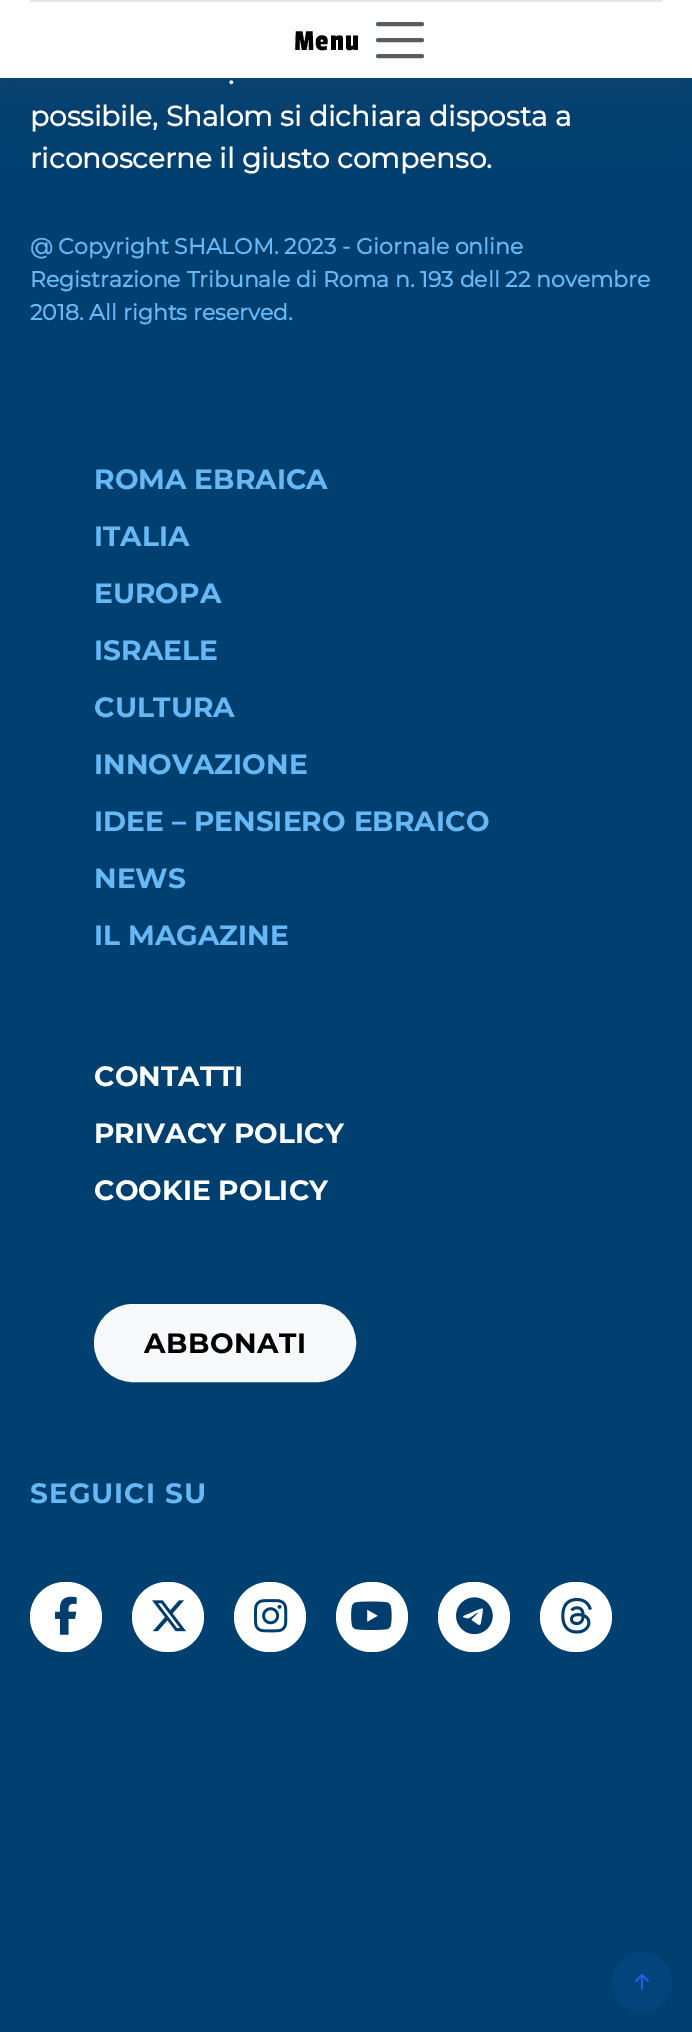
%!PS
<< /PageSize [692 2032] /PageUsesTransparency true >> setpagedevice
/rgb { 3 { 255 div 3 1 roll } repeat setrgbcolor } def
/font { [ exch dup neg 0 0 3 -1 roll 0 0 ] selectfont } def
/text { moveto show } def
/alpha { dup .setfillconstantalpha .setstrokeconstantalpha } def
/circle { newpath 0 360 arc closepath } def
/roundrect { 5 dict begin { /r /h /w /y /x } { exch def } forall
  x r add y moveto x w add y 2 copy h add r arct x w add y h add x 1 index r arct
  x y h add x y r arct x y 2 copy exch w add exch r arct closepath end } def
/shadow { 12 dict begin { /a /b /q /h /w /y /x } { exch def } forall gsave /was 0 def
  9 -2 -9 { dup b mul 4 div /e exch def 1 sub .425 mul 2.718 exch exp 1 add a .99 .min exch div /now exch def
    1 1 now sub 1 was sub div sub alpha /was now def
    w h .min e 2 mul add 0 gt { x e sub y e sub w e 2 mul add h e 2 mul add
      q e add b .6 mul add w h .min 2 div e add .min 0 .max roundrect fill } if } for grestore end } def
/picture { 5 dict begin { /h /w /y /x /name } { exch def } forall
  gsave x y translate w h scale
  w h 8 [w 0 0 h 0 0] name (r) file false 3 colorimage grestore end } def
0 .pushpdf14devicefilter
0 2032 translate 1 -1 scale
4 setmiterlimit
0 64 112 rgb
0 0 692 2032 rectfill
83 88 93 rgb
0 0 692 78 0 40 0.2 shadow
255 255 255 rgb
0 0 692 78 rectfill
230 230 230 rgb
30 0 632 2 rectfill
89 92 95 rgb
4 setlinewidth
1 setlinecap
378 24 moveto 44 0 rlineto 378 40 moveto 44 0 rlineto 378 56 moveto 44 0 rlineto stroke
247 248 249 rgb
95 1305 260 76 38 roundrect gsave fill grestore
2 setlinewidth
0 setlinecap
stroke
255 255 255 rgb
30 1582 72 70 35 roundrect fill
(img_01.rgb) 55 1596 22 39 picture
132 1582 72 70 35 roundrect fill
(img_02.rgb) 152 1600 34 32 picture
234 1582 72 70 35 roundrect fill
(img_03.rgb) 254 1599 34 34 picture
336 1582 72 70 35 roundrect fill
(img_04.rgb) 351 1601 41 29 picture
438 1582 72 70 35 roundrect fill
(img_05.rgb) 456 1597 37 38 picture
540 1582 72 70 35 roundrect fill
(img_06.rgb) 561 1597 31 37 picture
3 68 124 rgb
642 1982 30 circle fill
(img_07.rgb) 635 1974 14 16 picture
/PassionOne-Regular 30 font
0 0 0 rgb
294 50 moveto 1 0 (Menu) ashow
/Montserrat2-Bold 28 font
255 255 255 rgb
(.) 228 84 text
(possibile, Shalom si dichiara disposta a) 30 126 text
(riconoscerne il giusto compenso.) 30 168 text
/Montserrat2-Bold 22 font
103 184 245 rgb
(@ Copyright SHALOM. 2023 - Giornale online) 30 254 text
(Registrazione Tribunale di Roma n. 193 dell 22 novembre) 30 287 text
(2018. All rights reserved.) 30 320 text
/Montserrat-Bold 28 font
(ROMA EBRAICA) 94 489 text
(ITALIA) 94 546 text
(EUROPA) 94 603 text
(ISRAELE) 94 660 text
(CULTURA) 94 717 text
(INNOVAZIONE) 94 774 text
(IDEE – PENSIERO EBRAICO) 94 831 text
(NEWS) 94 888 text
(IL MAGAZINE) 94 945 text
255 255 255 rgb
(CONTATTI) 94 1086 text
(PRIVACY POLICY) 94 1143 text
(COOKIE POLICY) 94 1200 text
0 0 0 rgb
144 1353 moveto 0.5 0 (ABBONATI) ashow
103 184 245 rgb
30 1503 moveto 1 0 (SEGUICI SU) ashow
.poppdf14devicefilter showpage
